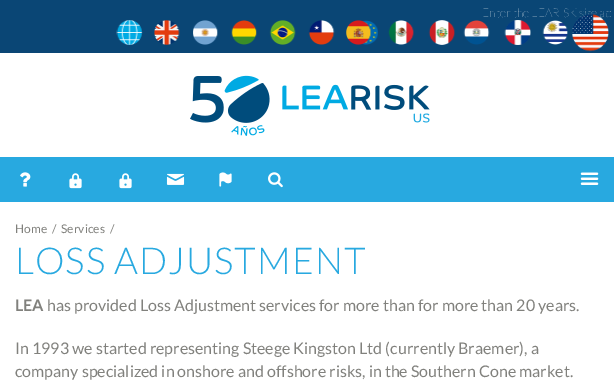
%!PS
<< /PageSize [614 389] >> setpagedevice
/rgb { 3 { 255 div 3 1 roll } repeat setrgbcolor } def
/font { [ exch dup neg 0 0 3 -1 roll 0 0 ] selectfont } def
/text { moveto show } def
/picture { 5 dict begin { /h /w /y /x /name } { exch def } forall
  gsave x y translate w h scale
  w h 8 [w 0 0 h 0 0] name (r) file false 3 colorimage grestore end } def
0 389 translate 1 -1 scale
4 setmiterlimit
255 255 255 rgb
0 0 614 389 rectfill
10 70 117 rgb
0 0 614 53 rectfill
(img_01.rgb) 116 20 27 25 picture
(img_02.rgb) 154 20 26 25 picture
(img_03.rgb) 193 20 25 25 picture
(img_04.rgb) 231 20 26 25 picture
(img_05.rgb) 269 20 27 25 picture
(img_06.rgb) 308 20 27 25 picture
(img_07.rgb) 346 20 32 25 picture
(img_08.rgb) 388 20 26 25 picture
(img_09.rgb) 428 20 27 25 picture
(img_10.rgb) 463 20 27 25 picture
(img_11.rgb) 504 20 27 25 picture
(img_12.rgb) 542 20 26 25 picture
(img_14.rgb) 190 75 240 61 picture
40 169 224 rgb
0 157 614 45 rectfill
(img_15.rgb) 20 172 11 15 picture
(img_16.rgb) 69 173 13 16 picture
(img_16.rgb) 119 173 13 16 picture
(img_17.rgb) 166 173 19 12 picture
(img_18.rgb) 219 172 13 15 picture
(img_19.rgb) 268 172 15 16 picture
(img_20.rgb) 580 172 19 13 picture
/Lato-Thin 12 font
255 255 255 rgb
(Enter the LEARISK site at:) 482 17 text
(img_13.rgb) 572 13 37 39 picture
/Lato-Regular 12 font
129 129 125 rgb
(Home) 15 233 text
(/) 52 233 text
(Services) 61 233 text
(/) 110 233 text
/Lato-Light 37 font
40 169 224 rgb
15 274 moveto 1 0 (LOSS ADJUSTMENT) ashow
/Lato-Bold 16 font
129 129 125 rgb
(LEA) 15 311 text
/Lato-Regular 16 font
(has provided Loss Adjustment services for more than for more than 20 years.) 47 311 text
(In 1993 we started representing Steege Kingston Ltd \(currently Braemer\), a) 15 354 text
(company specialized in onshore and offshore risks, in the Southern Cone market.) 15 377 text
showpage
